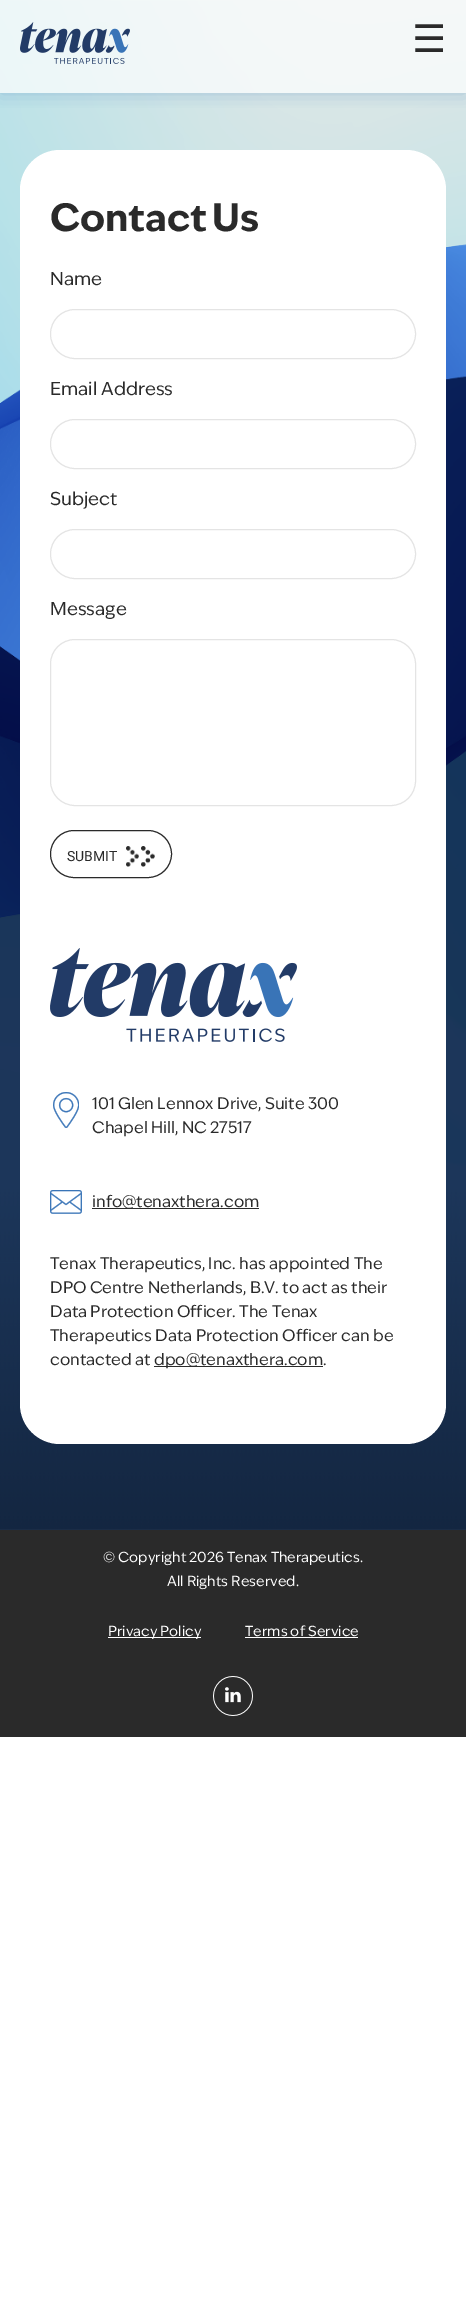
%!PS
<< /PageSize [466 2300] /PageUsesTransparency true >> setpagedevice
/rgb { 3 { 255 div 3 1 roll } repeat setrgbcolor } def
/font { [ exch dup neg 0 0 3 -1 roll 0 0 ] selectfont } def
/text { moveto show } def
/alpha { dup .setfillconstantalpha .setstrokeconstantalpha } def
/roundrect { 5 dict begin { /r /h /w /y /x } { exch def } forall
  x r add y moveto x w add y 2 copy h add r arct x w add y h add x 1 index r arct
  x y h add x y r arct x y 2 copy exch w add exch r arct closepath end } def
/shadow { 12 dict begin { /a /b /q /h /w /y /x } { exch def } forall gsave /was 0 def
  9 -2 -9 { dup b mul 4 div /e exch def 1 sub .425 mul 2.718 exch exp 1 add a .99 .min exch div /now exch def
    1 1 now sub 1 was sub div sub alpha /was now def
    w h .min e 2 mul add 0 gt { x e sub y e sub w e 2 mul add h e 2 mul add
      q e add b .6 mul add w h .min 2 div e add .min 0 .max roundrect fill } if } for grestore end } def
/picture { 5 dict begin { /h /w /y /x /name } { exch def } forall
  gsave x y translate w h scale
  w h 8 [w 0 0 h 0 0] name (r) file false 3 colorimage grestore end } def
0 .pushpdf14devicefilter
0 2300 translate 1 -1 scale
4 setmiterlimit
255 255 255 rgb
0 0 466 2300 rectfill
(img_01.rgb) 0 0 466 1530 picture
gsave
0 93 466 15 rectclip
57 116 183 rgb
0 0 466 93 0 10 0.3 shadow
grestore
0.7 alpha
0 0 466 93 rectfill
1 alpha
(img_02.rgb) 20 22 110 42 picture
20 150 426 1294 40 roundrect fill
228 228 228 rgb
50.5 309.5 365 49 24.5 roundrect stroke
50.5 419.5 365 49 24.5 roundrect stroke
50.5 529.5 365 49 24.5 roundrect stroke
50.5 639.5 365 166 24.5 roundrect stroke
42 42 42 rgb
50.5 830.5 121 47 23.5 roundrect stroke
(img_03.rgb) 126 846 13 21 picture
(img_04.rgb) 141 846 14 21 picture
(img_05.rgb) 50 948 247 94 picture
(img_06.rgb) 53 1092 26 36 picture
(img_07.rgb) 50 1190 32 24 picture
92 1208 167 1 rectfill
154 1366 169 1 rectfill
0 1530 466 207 rectfill
255 255 255 rgb
108 1637 93 1 rectfill
245 1637 113 1 rectfill
(img_08.rgb) 213 1676 40 40 picture
/DejaVuSans-Regular 38 font
42 42 42 rgb
(☰) 412 52 text
/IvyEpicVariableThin-Bold 38 font
50 231 moveto -2 0 32 (Contact Us) widthshow
/IvyEpicVariableThin-Regular 18 font
(Name) 50 285 text
(Email Address) 50 395 text
(Subject) 50 505 text
(Message) 50 615 text
/Roboto-Regular 14 font
(SUBMIT) 67 861 text
/IvyEpicVariableThin-Regular 16 font
(101 Glen Lennox Drive, Suite 300) 92 1109 text
(Chapel Hill, NC 27517) 92 1133 text
(info@tenaxthera.com) 92 1207 text
(Tenax Therapeutics, Inc. has appointed The) 50 1269 text
(DPO Centre Netherlands, B.V. to act as their) 50 1293 text
(Data Protection Officer. The Tenax) 50 1317 text
(Therapeutics Data Protection Officer can be) 50 1341 text
(contacted at) 50 1365 text
(dpo@tenaxthera.com.) 154 1365 text
/IvyEpicVariableThin-Regular 14 font
255 255 255 rgb
(© Copyright 2026 Tenax Therapeutics.) 103 1562 text
(All Rights Reserved.) 167 1586 text
(Privacy Policy) 108 1636 text
(Terms of Service) 245 1636 text
.poppdf14devicefilter showpage
